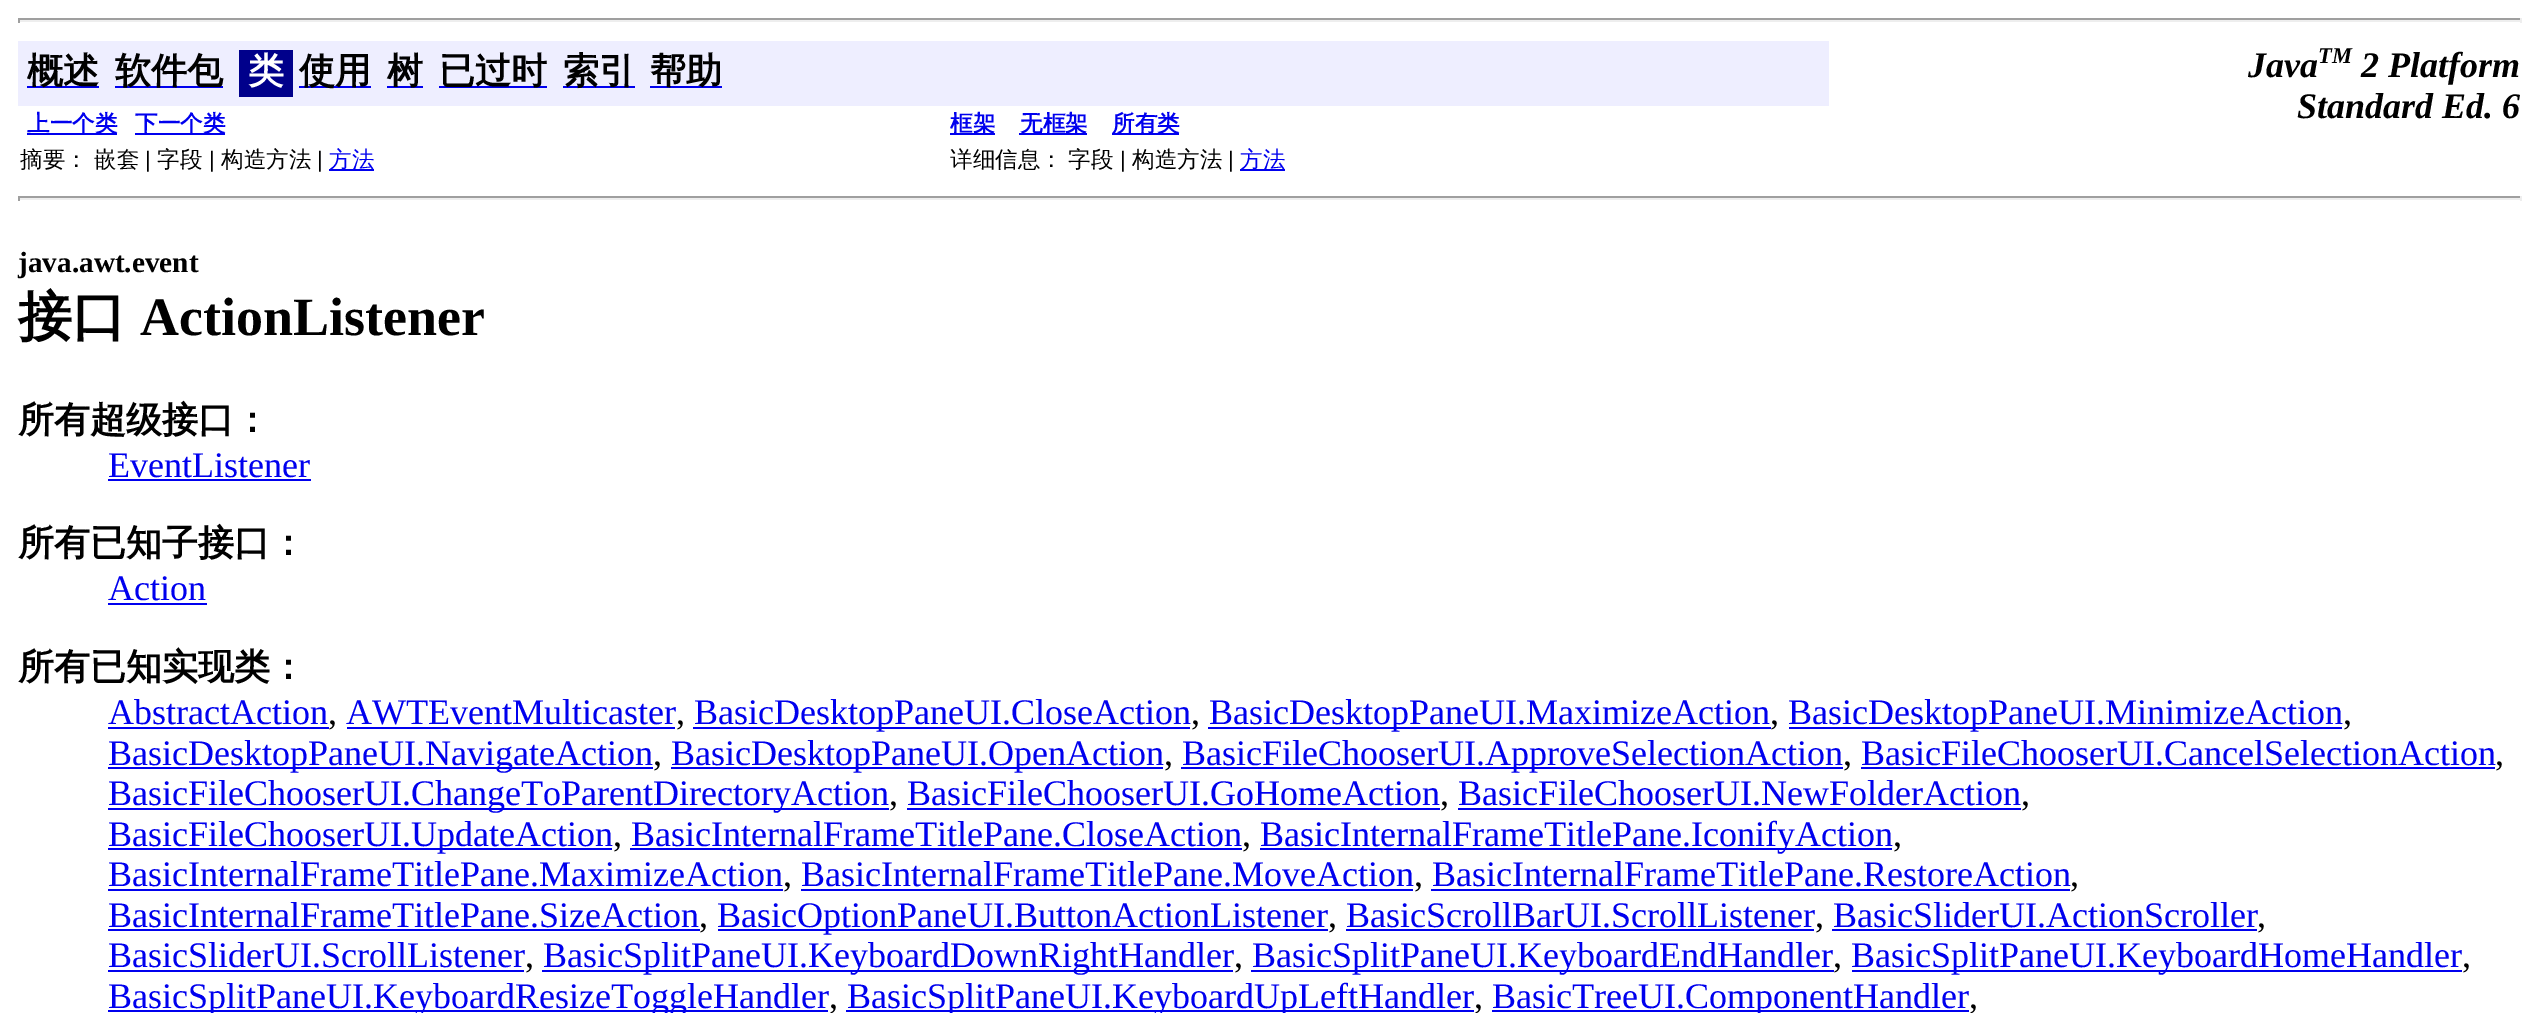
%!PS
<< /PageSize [2539 1013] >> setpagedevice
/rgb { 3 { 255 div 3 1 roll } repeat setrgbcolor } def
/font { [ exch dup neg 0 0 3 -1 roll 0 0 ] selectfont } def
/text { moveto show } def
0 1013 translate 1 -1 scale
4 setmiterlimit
255 255 255 rgb
0 0 2539 1013 rectfill
159 159 159 rgb
18 18 2504 2 rectfill
238 238 238 rgb
2520 18 2 5 rectfill
18 20 2504 2 rectfill
159 159 159 rgb
18 18 2 5 rectfill
238 238 255 rgb
18 41 1811 65 rectfill
0 0 238 rgb
27 86 72 2 rectfill
115 86 108 2 rectfill
0 0 139 rgb
239 50 54 47 rectfill
0 0 238 rgb
299 86 72 2 rectfill
387 86 36 2 rectfill
439 86 108 2 rectfill
563 86 72 2 rectfill
650 86 72 2 rectfill
27 133 90 2 rectfill
135 133 90 2 rectfill
950 133 45 2 rectfill
1019 133 68 2 rectfill
1112 133 67 2 rectfill
329 169 45 2 rectfill
1240 169 45 2 rectfill
159 159 159 rgb
18 196 2504 2 rectfill
238 238 238 rgb
2520 196 2 5 rectfill
18 198 2504 2 rectfill
159 159 159 rgb
18 196 2 5 rectfill
0 0 238 rgb
108 479 203 2 rectfill
108 603 99 2 rectfill
108 727 221 2 rectfill
347 727 328 2 rectfill
693 727 497 2 rectfill
1208 727 563 2 rectfill
1789 727 553 2 rectfill
108 767 545 2 rectfill
671 767 492 2 rectfill
1181 767 662 2 rectfill
1861 767 634 2 rectfill
108 808 781 2 rectfill
907 808 533 2 rectfill
1458 808 563 2 rectfill
108 848 504 2 rectfill
630 848 612 2 rectfill
1260 848 632 2 rectfill
108 889 675 2 rectfill
801 889 612 2 rectfill
1431 889 639 2 rectfill
108 929 592 2 rectfill
718 929 610 2 rectfill
1346 929 468 2 rectfill
1832 929 425 2 rectfill
108 970 416 2 rectfill
542 970 691 2 rectfill
1251 970 583 2 rectfill
1852 970 610 2 rectfill
108 1010 720 2 rectfill
846 1010 628 2 rectfill
1492 1010 477 2 rectfill
/WenQuanYiZenHei-Bold 36 font
0 0 0 rgb
(概述) 27 83 text
(软件包) 115 83 text
255 255 255 rgb
(类) 248 83 text
0 0 0 rgb
(使用) 299 83 text
(树) 387 83 text
(已过时) 439 83 text
(索引) 563 83 text
(帮助) 650 83 text
/LiberationSerif-BoldItalic 36 font
(Java) 2248 77 text
/LiberationSerif-BoldItalic 22.5 font
(TM) 2318 63 text
/LiberationSerif-BoldItalic 36 font
(2 Platform) 2361 77 text
(Standard Ed. 6) 2297 118 text
/WenQuanYiZenHei-Bold 22.5 font
0 0 238 rgb
(上一个类) 27 131 text
(下一个类) 135 131 text
(框架) 950 131 text
(无框架) 1020 131 text
(所有类) 1112 131 text
/WenQuanYiZenHei-Medium 22.5 font
0 0 0 rgb
(摘要：) 20 167 text
(嵌套) 94 167 text
/LiberationSans-Regular 22.5 font
(|) 145 167 text
/WenQuanYiZenHei-Medium 22.5 font
(字段) 157 167 text
/LiberationSans-Regular 22.5 font
(|) 209 167 text
/WenQuanYiZenHei-Medium 22.5 font
(构造方法) 221 167 text
/LiberationSans-Regular 22.5 font
(|) 317 167 text
/WenQuanYiZenHei-Medium 22.5 font
0 0 238 rgb
(方法) 329 167 text
0 0 0 rgb
(详细信息：) 950 167 text
(字段) 1068 167 text
/LiberationSans-Regular 22.5 font
(|) 1120 167 text
/WenQuanYiZenHei-Medium 22.5 font
(构造方法) 1132 167 text
/LiberationSans-Regular 22.5 font
(|) 1228 167 text
/WenQuanYiZenHei-Medium 22.5 font
0 0 238 rgb
(方法) 1240 167 text
/LiberationSerif-Bold 29.25 font
0 0 0 rgb
(java.awt.event) 18 272 text
/WenQuanYiZenHei-Bold 54 font
(接口) 18 335 text
/LiberationSerif-Bold 54 font
(ActionListener) 140 335 text
/WenQuanYiZenHei-Bold 36 font
(所有超级接口：) 18 432 text
/LiberationSerif-Regular 36 font
0 0 238 rgb
(EventListener) 108 477 text
/WenQuanYiZenHei-Bold 36 font
0 0 0 rgb
(所有已知子接口：) 18 555 text
/LiberationSerif-Regular 36 font
0 0 238 rgb
(Action) 108 600 text
/WenQuanYiZenHei-Bold 36 font
0 0 0 rgb
(所有已知实现类：) 18 679 text
/LiberationSerif-Regular 36 font
0 0 238 rgb
(AbstractAction) 108 724 text
0 0 0 rgb
(,) 328 724 text
0 0 238 rgb
(AWTEventMulticaster) 346 724 text
0 0 0 rgb
(,) 676 724 text
0 0 238 rgb
(BasicDesktopPaneUI.CloseAction) 694 724 text
0 0 0 rgb
(,) 1191 724 text
0 0 238 rgb
(BasicDesktopPaneUI.MaximizeAction) 1209 724 text
0 0 0 rgb
(,) 1770 724 text
0 0 238 rgb
(BasicDesktopPaneUI.MinimizeAction) 1788 724 text
0 0 0 rgb
(,) 2343 724 text
0 0 238 rgb
(BasicDesktopPaneUI.NavigateAction) 108 765 text
0 0 0 rgb
(,) 653 765 text
0 0 238 rgb
(BasicDesktopPaneUI.OpenAction) 671 765 text
0 0 0 rgb
(,) 1164 765 text
0 0 238 rgb
(BasicFileChooserUI.ApproveSelectionAction) 1182 765 text
0 0 0 rgb
(,) 1843 765 text
0 0 238 rgb
(BasicFileChooserUI.CancelSelectionAction) 1861 765 text
0 0 0 rgb
(,) 2495 765 text
0 0 238 rgb
(BasicFileChooserUI.ChangeToParentDirectoryAction) 108 805 text
0 0 0 rgb
(,) 889 805 text
0 0 238 rgb
(BasicFileChooserUI.GoHomeAction) 907 805 text
0 0 0 rgb
(,) 1440 805 text
0 0 238 rgb
(BasicFileChooserUI.NewFolderAction) 1458 805 text
0 0 0 rgb
(,) 2021 805 text
0 0 238 rgb
(BasicFileChooserUI.UpdateAction) 108 846 text
0 0 0 rgb
(,) 613 846 text
0 0 238 rgb
(BasicInternalFrameTitlePane.CloseAction) 631 846 text
0 0 0 rgb
(,) 1242 846 text
0 0 238 rgb
(BasicInternalFrameTitlePane.IconifyAction) 1260 846 text
0 0 0 rgb
(,) 1893 846 text
0 0 238 rgb
(BasicInternalFrameTitlePane.MaximizeAction) 108 886 text
0 0 0 rgb
(,) 783 886 text
0 0 238 rgb
(BasicInternalFrameTitlePane.MoveAction) 801 886 text
0 0 0 rgb
(,) 1414 886 text
0 0 238 rgb
(BasicInternalFrameTitlePane.RestoreAction) 1432 886 text
0 0 0 rgb
(,) 2070 886 text
0 0 238 rgb
(BasicInternalFrameTitlePane.SizeAction) 108 927 text
0 0 0 rgb
(,) 699 927 text
0 0 238 rgb
(BasicOptionPaneUI.ButtonActionListener) 717 927 text
0 0 0 rgb
(,) 1328 927 text
0 0 238 rgb
(BasicScrollBarUI.ScrollListener) 1346 927 text
0 0 0 rgb
(,) 1815 927 text
0 0 238 rgb
(BasicSliderUI.ActionScroller) 1833 927 text
0 0 0 rgb
(,) 2257 927 text
0 0 238 rgb
(BasicSliderUI.ScrollListener) 108 967 text
0 0 0 rgb
(,) 525 967 text
0 0 238 rgb
(BasicSplitPaneUI.KeyboardDownRightHandler) 543 967 text
0 0 0 rgb
(,) 1234 967 text
0 0 238 rgb
(BasicSplitPaneUI.KeyboardEndHandler) 1252 967 text
0 0 0 rgb
(,) 1833 967 text
0 0 238 rgb
(BasicSplitPaneUI.KeyboardHomeHandler) 1851 967 text
0 0 0 rgb
(,) 2462 967 text
0 0 238 rgb
(BasicSplitPaneUI.KeyboardResizeToggleHandler) 108 1008 text
0 0 0 rgb
(,) 829 1008 text
0 0 238 rgb
(BasicSplitPaneUI.KeyboardUpLeftHandler) 847 1008 text
0 0 0 rgb
(,) 1474 1008 text
0 0 238 rgb
(BasicTreeUI.ComponentHandler) 1492 1008 text
0 0 0 rgb
(,) 1969 1008 text
showpage
